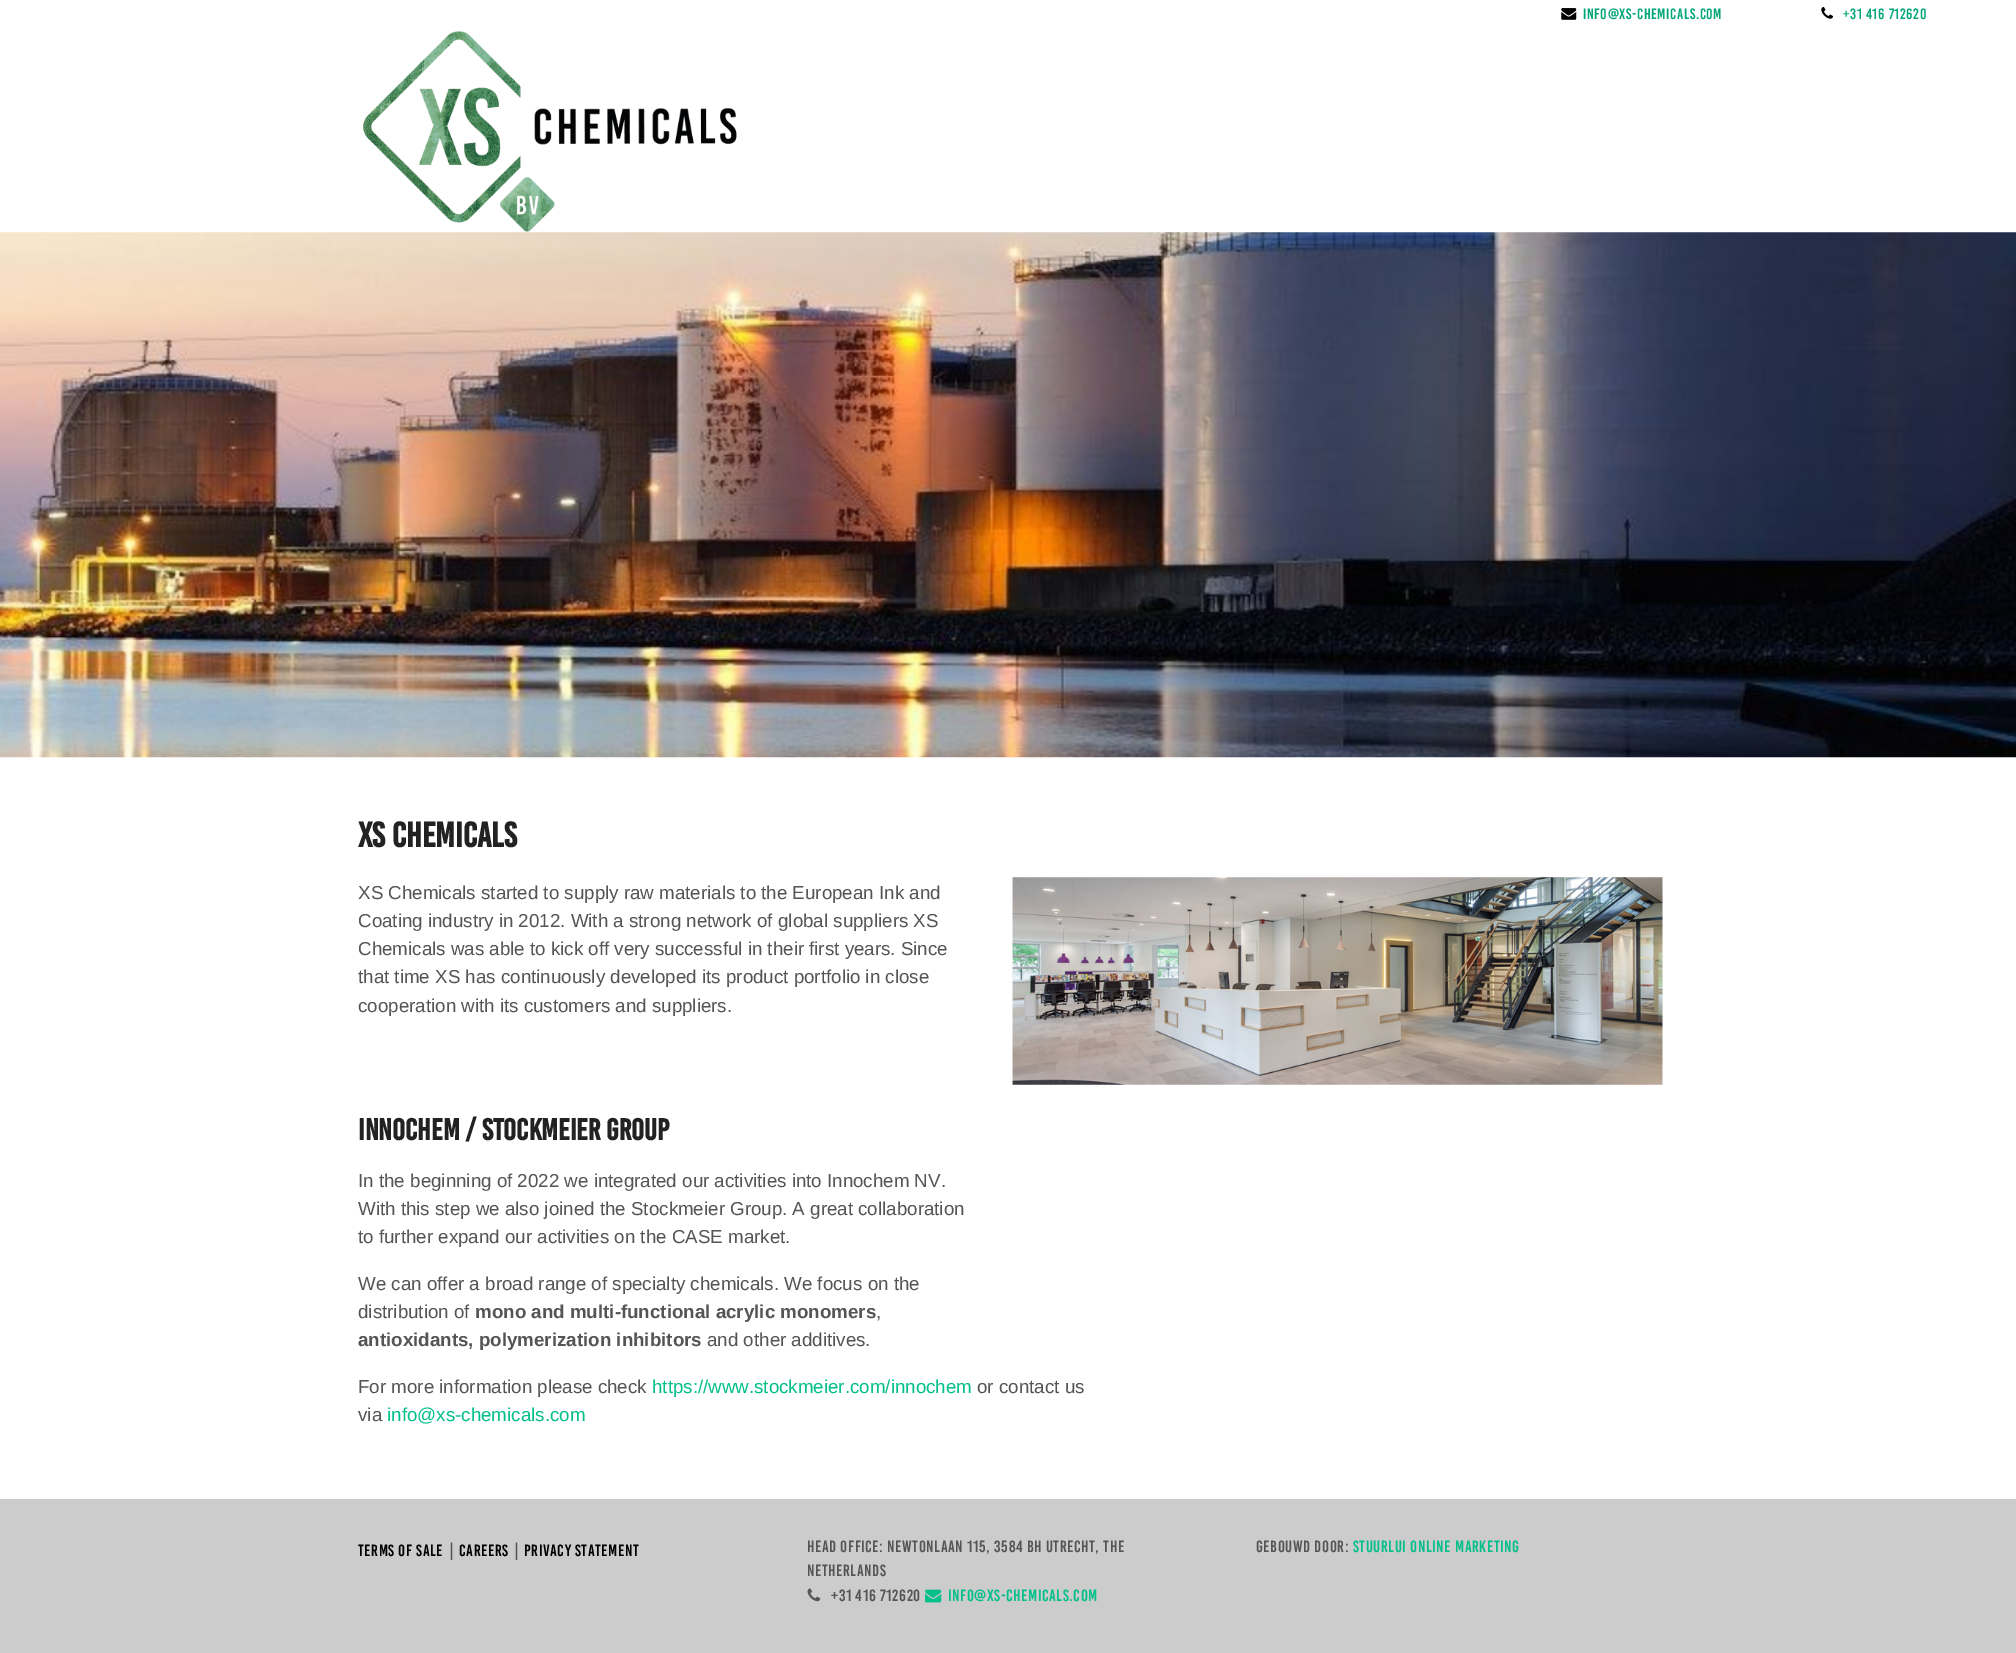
%!PS
<< /PageSize [2016 1653] >> setpagedevice
/rgb { 3 { 255 div 3 1 roll } repeat setrgbcolor } def
/font { [ exch dup neg 0 0 3 -1 roll 0 0 ] selectfont } def
/text { moveto show } def
/picture { 5 dict begin { /h /w /y /x /name } { exch def } forall
  gsave x y translate w h scale
  w h 8 [w 0 0 h 0 0] name (r) file false 3 colorimage grestore end } def
0 1653 translate 1 -1 scale
4 setmiterlimit
255 255 255 rgb
0 0 2016 1653 rectfill
(img_01.rgb) 1561 8 16 12 picture
(img_02.rgb) 1821 7 12 12 picture
(img_03.rgb) 363 31 374 201 picture
(img_04.rgb) 0 232 2016 526 picture
(img_05.rgb) 1012 877 651 208 picture
204 204 204 rgb
0 1499 2016 154 rectfill
(img_06.rgb) 807 1588 14 14 picture
(img_07.rgb) 925 1589 17 14 picture
/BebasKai-Regular 15 font
3 166 120 rgb
1583 19 moveto 0.6 0 (info@xs-chemicals.com) ashow
1843 19 moveto 0.6 0 (+31 416 712620) ashow
/BebasKai-Bold 35 font
34 34 34 rgb
(XS CHEMICALS) 358 847 text
/LiberationSans-Regular 18.75 font
85 85 85 rgb
(XS Chemicals started to supply raw materials to the European Ink and) 358 899 text
(Coating industry in 2012. With a strong network of global suppliers XS) 358 927 text
(Chemicals was able to kick off very successful in their first years. Since) 358 955 text
(that time XS has continuously developed its product portfolio in close) 358 983 text
(cooperation with its customers and suppliers.) 358 1012 text
/BebasKai-Bold 30 font
34 34 34 rgb
(Innochem / Stockmeier Group) 358 1140 text
/LiberationSans-Regular 18.75 font
85 85 85 rgb
(In the beginning of 2022 we integrated our activities into Innochem NV.) 358 1187 text
(With this step we also joined the Stockmeier Group. A great collaboration) 358 1215 text
(to further expand our activities on the CASE market.) 358 1243 text
(We can offer a broad range of specialty chemicals. We focus on the) 358 1290 text
(distribution of) 358 1318 text
/LiberationSans-Bold 18.75 font
(mono and multi-functional acrylic monomers) 475 1318 text
/LiberationSans-Regular 18.75 font
(,) 876 1318 text
/LiberationSans-Bold 18.75 font
(antioxidants, polymerization inhibitors) 358 1346 text
/LiberationSans-Regular 18.75 font
(and other additives.) 707 1346 text
(For more information please check) 358 1393 text
3 191 138 rgb
(https://www.stockmeier.com/innochem) 652 1393 text
85 85 85 rgb
(or contact us) 977 1393 text
(via) 358 1421 text
3 191 138 rgb
(info@xs-chemicals.com) 387 1421 text
/BebasKai-Regular 16.25 font
0 0 0 rgb
358 1556 moveto 0.6 0 (terms of sale) ashow
/LiberationSans-Regular 18.75 font
85 85 85 rgb
(|) 449 1556 text
/BebasKai-Regular 16.25 font
0 0 0 rgb
459 1556 moveto 0.6 0 (careers) ashow
/LiberationSans-Regular 18.75 font
85 85 85 rgb
(|) 514 1556 text
/BebasKai-Regular 16.25 font
0 0 0 rgb
524 1556 moveto 0.6 0 (Privacy statement) ashow
85 85 85 rgb
807 1552 moveto 0.6 0 (Head office: Newtonlaan 115, 3584 BH Utrecht, The) ashow
807 1576 moveto 0.6 0 (Netherlands) ashow
831 1601 moveto 0.6 0 (+31 416 712620) ashow
3 191 138 rgb
948 1601 moveto 0.6 0 (info@xs-chemicals.com) ashow
85 85 85 rgb
1256 1552 moveto 0.6 0 (Gebouwd door:) ashow
3 191 138 rgb
1353 1552 moveto 0.6 0 (Stuurlui Online Marketing) ashow
showpage
